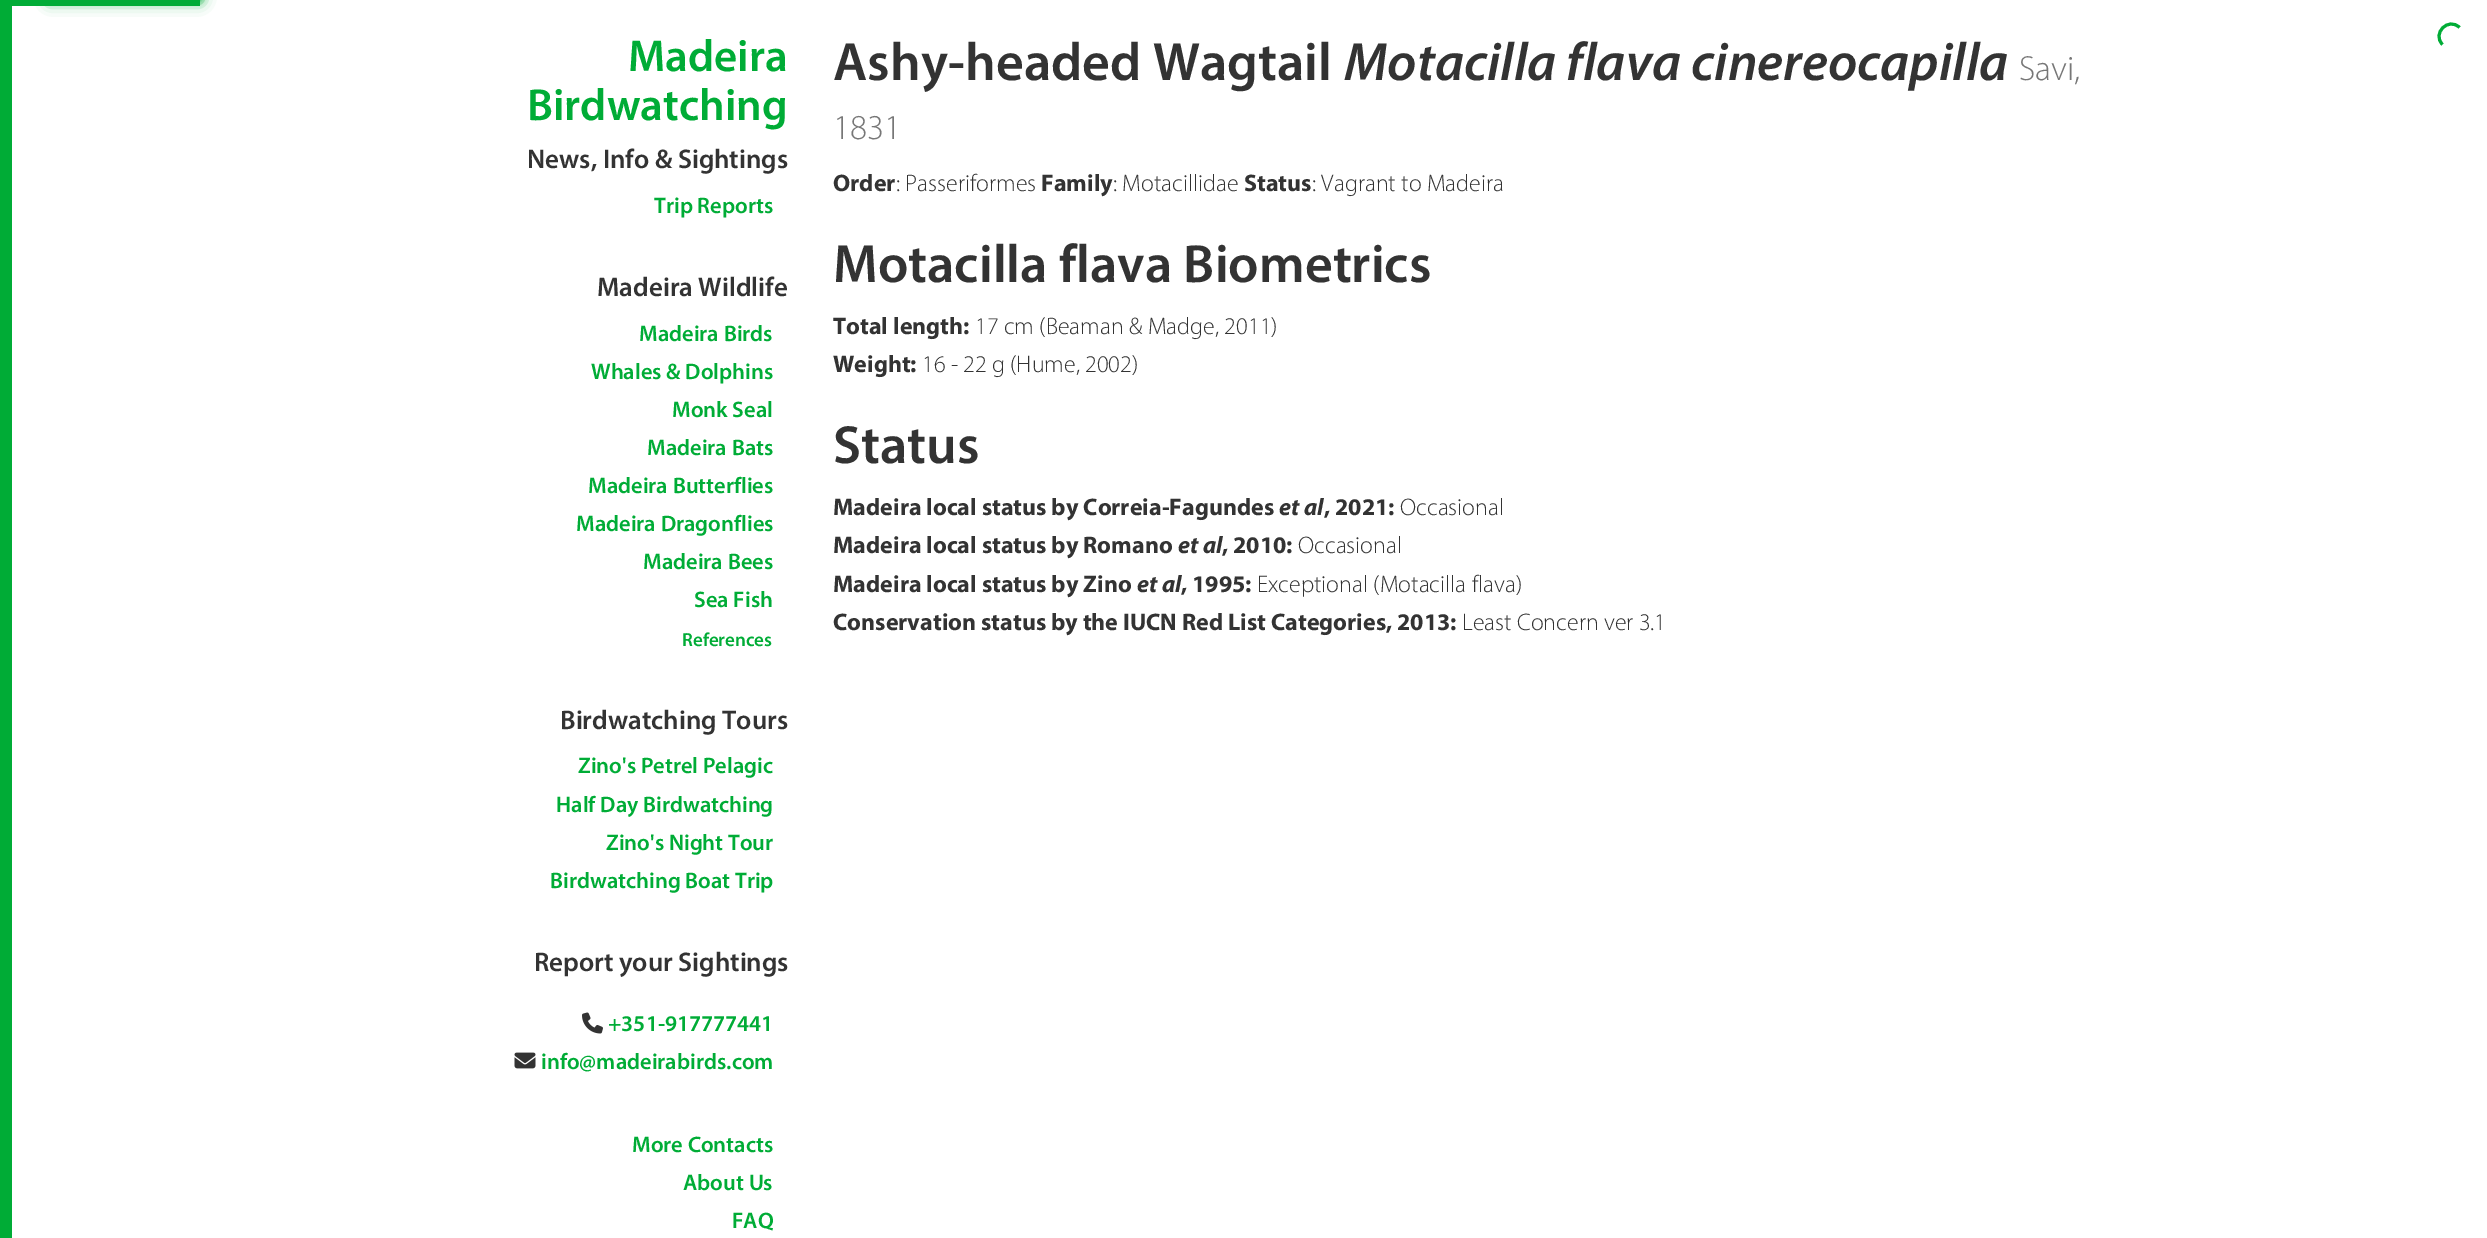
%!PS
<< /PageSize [2487 1238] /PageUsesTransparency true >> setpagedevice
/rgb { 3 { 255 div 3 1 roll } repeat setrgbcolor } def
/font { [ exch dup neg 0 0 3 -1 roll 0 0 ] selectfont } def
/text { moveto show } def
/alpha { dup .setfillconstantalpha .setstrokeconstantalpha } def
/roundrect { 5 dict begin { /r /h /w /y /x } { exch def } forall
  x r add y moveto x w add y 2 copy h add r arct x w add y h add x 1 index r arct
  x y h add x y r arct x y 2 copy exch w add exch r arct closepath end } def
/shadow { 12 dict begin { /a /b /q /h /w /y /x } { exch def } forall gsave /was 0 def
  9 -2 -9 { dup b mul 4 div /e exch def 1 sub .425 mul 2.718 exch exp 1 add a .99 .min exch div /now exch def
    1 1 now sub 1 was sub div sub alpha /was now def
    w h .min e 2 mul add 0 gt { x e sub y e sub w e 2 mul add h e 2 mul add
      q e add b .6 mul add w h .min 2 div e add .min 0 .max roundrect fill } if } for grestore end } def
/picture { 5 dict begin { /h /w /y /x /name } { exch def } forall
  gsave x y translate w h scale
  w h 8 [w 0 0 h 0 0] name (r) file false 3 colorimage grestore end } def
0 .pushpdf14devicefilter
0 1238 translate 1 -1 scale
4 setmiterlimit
255 255 255 rgb
0 0 2487 1238 rectfill
0 172 54 rgb
0 6 12 1232 rectfill
0 0 200 6 rectfill
gsave
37 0 moveto 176 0 rlineto 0 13 rlineto -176 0 rlineto closepath 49.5 -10 moveto 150 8 rlineto -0.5 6 rlineto -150 -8 rlineto closepath eoclip newpath
50 -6 150 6 0 4 1 shadow
grestore
gsave
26 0 moveto 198 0 rlineto 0 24 rlineto -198 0 rlineto closepath 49.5 -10 moveto 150 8 rlineto -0.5 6 rlineto -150 -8 rlineto closepath eoclip newpath
50 -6 150 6 0 7.5 1 shadow
grestore
3 setlinewidth
2442.5 44.5 moveto -11 -11 6 -28 17 -17 rcurveto stroke
(img_01.rgb) 582 1012 21 22 picture
(img_02.rgb) 514 1052 22 17 picture
/Myriad-SemiBold 45 font
(Madeira) 628 71 text
(Birdwatching) 527 120 text
/Myriad-SemiBold 27 font
51 51 51 rgb
(News, Info & Sightings) 527 168 text
/Myriad-SemiBold 22.5 font
0 172 54 rgb
(Trip Reports) 654 213 text
/Myriad-SemiBold 27 font
51 51 51 rgb
(Madeira Wildlife) 597 296 text
/Myriad-SemiBold 22.5 font
0 172 54 rgb
(Madeira Birds) 639 341 text
(Whales & Dolphins) 591 379 text
(Monk Seal) 672 417 text
(Madeira Bats) 647 455 text
(Madeira Butterflies) 588 493 text
(Madeira Dragonflies) 576 531 text
(Madeira Bees) 643 569 text
(Sea Fish) 694 607 text
/Myriad-SemiBold 19 font
(References) 682 646 text
/Myriad-SemiBold 27 font
51 51 51 rgb
(Birdwatching Tours) 560 729 text
/Myriad-SemiBold 22.5 font
0 172 54 rgb
(Zino's Petrel Pelagic) 578 773 text
(Half Day Birdwatching) 556 812 text
(Zino's Night Tour) 606 850 text
(Birdwatching Boat Trip) 550 888 text
/Myriad-SemiBold 27 font
51 51 51 rgb
(Report your Sightings) 534 971 text
/Myriad-SemiBold 22.5 font
0 172 54 rgb
(+351-917777441) 608 1031 text
(info@madeirabirds.com) 541 1069 text
(More Contacts) 632 1152 text
(About Us) 683 1190 text
(FAQ) 732 1228 text
/Myriad-SemiBold 54 font
51 51 51 rgb
(Ashy-headed Wagtail) 833 80 text
/Myriad-SemiBoldItalic 54 font
(Motacilla flava cinereocapilla) 1344 80 text
/Myriad-Light 35 font
119 119 119 rgb
(Savi,) 2019 80 text
(1831) 833 139 text
/Myriad-Bold 24 font
51 51 51 rgb
(Order) 833 191 text
/Myriad-Light 24 font
(: Passeriformes) 896 191 text
/Myriad-Bold 24 font
(Family) 1041 191 text
/Myriad-Light 24 font
(: Motacillidae) 1113 191 text
/Myriad-Bold 24 font
(Status) 1244 191 text
/Myriad-Light 24 font
(: Vagrant to Madeira) 1312 191 text
/Myriad-SemiBold 54 font
(Motacilla flava Biometrics) 833 282 text
/Myriad-Bold 24 font
(Total length:) 833 334 text
/Myriad-Light 24 font
(17 cm \(Beaman & Madge, 2011\)) 975 334 text
/Myriad-Bold 24 font
(Weight:) 833 372 text
/Myriad-Light 24 font
(16 - 22 g \(Hume, 2002\)) 922 372 text
/Myriad-SemiBold 54 font
(Status) 833 463 text
/Myriad-Bold 24 font
(Madeira local status by Correia-Fagundes) 833 515 text
/Myriad-BoldItalic 24 font
(et al) 1279 515 text
/Myriad-Bold 24 font
(, 2021:) 1324 515 text
/Myriad-Light 24 font
(Occasional) 1400 515 text
/Myriad-Bold 24 font
(Madeira local status by Romano) 833 553 text
/Myriad-BoldItalic 24 font
(et al) 1178 553 text
/Myriad-Bold 24 font
(, 2010:) 1222 553 text
/Myriad-Light 24 font
(Occasional) 1298 553 text
/Myriad-Bold 24 font
(Madeira local status by Zino) 833 592 text
/Myriad-BoldItalic 24 font
(et al) 1137 592 text
/Myriad-Bold 24 font
(, 1995:) 1181 592 text
/Myriad-Light 24 font
(Exceptional \(Motacilla flava\)) 1257 592 text
/Myriad-Bold 24 font
(Conservation status by the IUCN Red List Categories, 2013:) 833 630 text
/Myriad-Light 24 font
(Least Concern ver 3.1) 1462 630 text
.poppdf14devicefilter showpage
